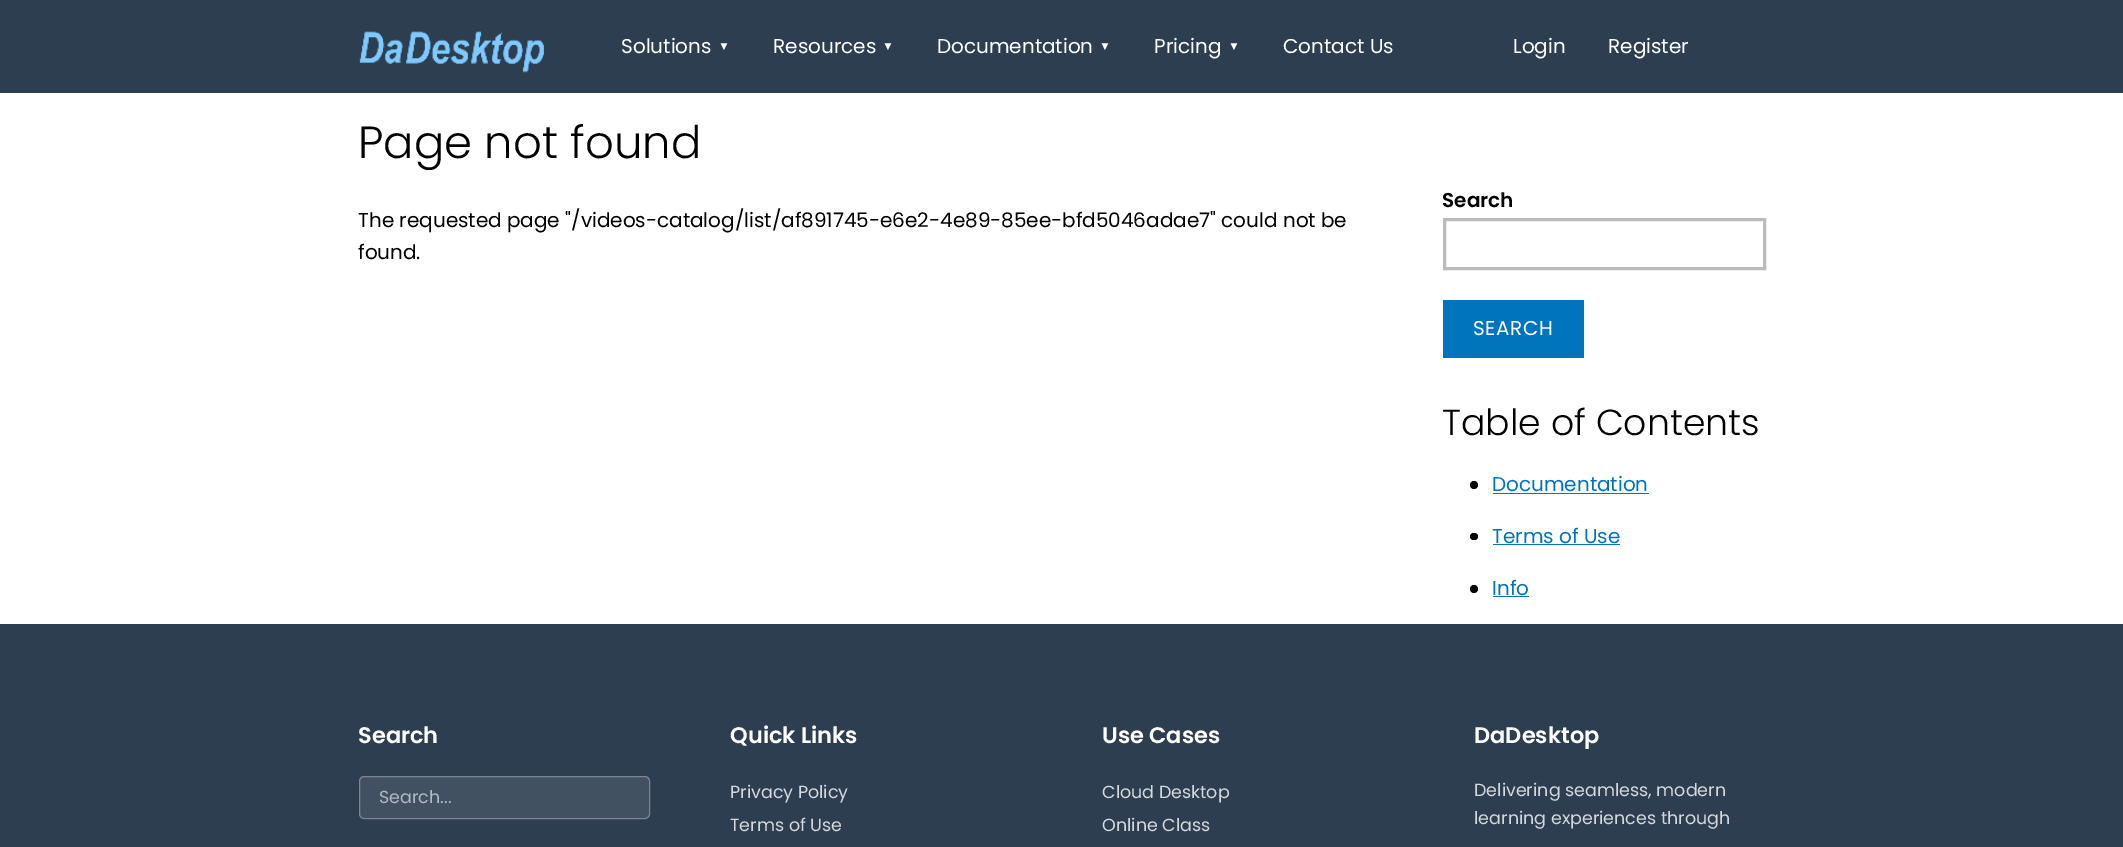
%!PS
<< /PageSize [2123 847] /PageUsesTransparency true >> setpagedevice
/rgb { 3 { 255 div 3 1 roll } repeat setrgbcolor } def
/font { [ exch dup neg 0 0 3 -1 roll 0 0 ] selectfont } def
/text { moveto show } def
/alpha { dup .setfillconstantalpha .setstrokeconstantalpha } def
/circle { newpath 0 360 arc closepath } def
/roundrect { 5 dict begin { /r /h /w /y /x } { exch def } forall
  x r add y moveto x w add y 2 copy h add r arct x w add y h add x 1 index r arct
  x y h add x y r arct x y 2 copy exch w add exch r arct closepath end } def
/picture { 5 dict begin { /h /w /y /x /name } { exch def } forall
  gsave x y translate w h scale
  w h 8 [w 0 0 h 0 0] name (r) file false 3 colorimage grestore end } def
0 .pushpdf14devicefilter
0 847 translate 1 -1 scale
4 setmiterlimit
255 255 255 rgb
0 0 2123 847 rectfill
44 62 80 rgb
0 0 2123 93 rectfill
(img_01.rgb) 359 31 185 42 picture
187 187 187 rgb
3 setlinewidth
1444.5 219.5 320 49 rectstroke
0 116 189 rgb
1443 300 141 58 rectfill
0 0 1 rgb
1474 485 4 circle fill
0 115 189 rgb
1493 493 156 1 rectfill
0 0 1 rgb
1470 533 8 7 3.5 roundrect fill
0 115 189 rgb
1493 544 127 1 rectfill
0 0 1 rgb
1474 589 4 circle fill
0 115 189 rgb
1493 596 36 1 rectfill
44 62 80 rgb
0 624 2123 223 rectfill
65 81 98 rgb
359 776 291 43 5 roundrect fill
0.3 alpha
255 255 255 rgb
1 setlinewidth
359.5 776.5 290 42 4.5 roundrect stroke
/Poppins-Regular 20 font
1 alpha
(Solutions) 621 53 text
/LiberationSans-Regular 12 font
(▼) 718 50 text
/Poppins-Regular 20 font
(Resources) 773 53 text
/LiberationSans-Regular 12 font
(▼) 882 50 text
/Poppins-Regular 20 font
(Documentation) 937 53 text
/LiberationSans-Regular 12 font
(▼) 1099 50 text
/Poppins-Regular 20 font
(Pricing) 1154 53 text
/LiberationSans-Regular 12 font
(▼) 1228 50 text
/Poppins-Regular 20 font
(Contact Us) 1283 53 text
(Login) 1513 53 text
(Register) 1608 53 text
/Poppins-Light 45 font
0 0 1 rgb
(Page not found) 358 158 text
/Poppins-Regular 20 font
(The requested page "/videos-catalog/list/af891745-e6e2-4e89-85ee-bfd5046adae7" could not be) 358 227 text
(found.) 358 259 text
/Poppins-SemiBold 20 font
(Search) 1442 207 text
/Poppins-Regular 20 font
255 255 255 rgb
1473 335 moveto 0.5 0 (SEARCH) ashow
/Poppins-Light 36.25 font
0 0 1 rgb
(Table of Contents) 1442 435 text
/Poppins-Regular 20 font
0 115 189 rgb
(Documentation) 1492 491 text
(Terms of Use) 1492 543 text
(Info) 1492 595 text
/Poppins-SemiBold 22.5 font
255 255 255 rgb
(Search) 358 743 text
/Poppins-Regular 17.5 font
179 185 192 rgb
(Search...) 379 803 text
/Poppins-SemiBold 22.5 font
255 255 255 rgb
(Quick Links) 730 743 text
/Poppins-Regular 17.5 font
213 216 220 rgb
(Privacy Policy) 730 798 text
(Terms of Use) 730 831 text
/Poppins-SemiBold 22.5 font
255 255 255 rgb
(Use Cases) 1102 743 text
/Poppins-Regular 17.5 font
213 216 220 rgb
(Cloud Desktop) 1102 798 text
(Online Class) 1102 831 text
/Poppins-SemiBold 22.5 font
255 255 255 rgb
(DaDesktop) 1474 743 text
/Poppins-Regular 17.5 font
213 216 220 rgb
(Delivering seamless, modern) 1474 796 text
(learning experiences through) 1474 824 text
.poppdf14devicefilter showpage
